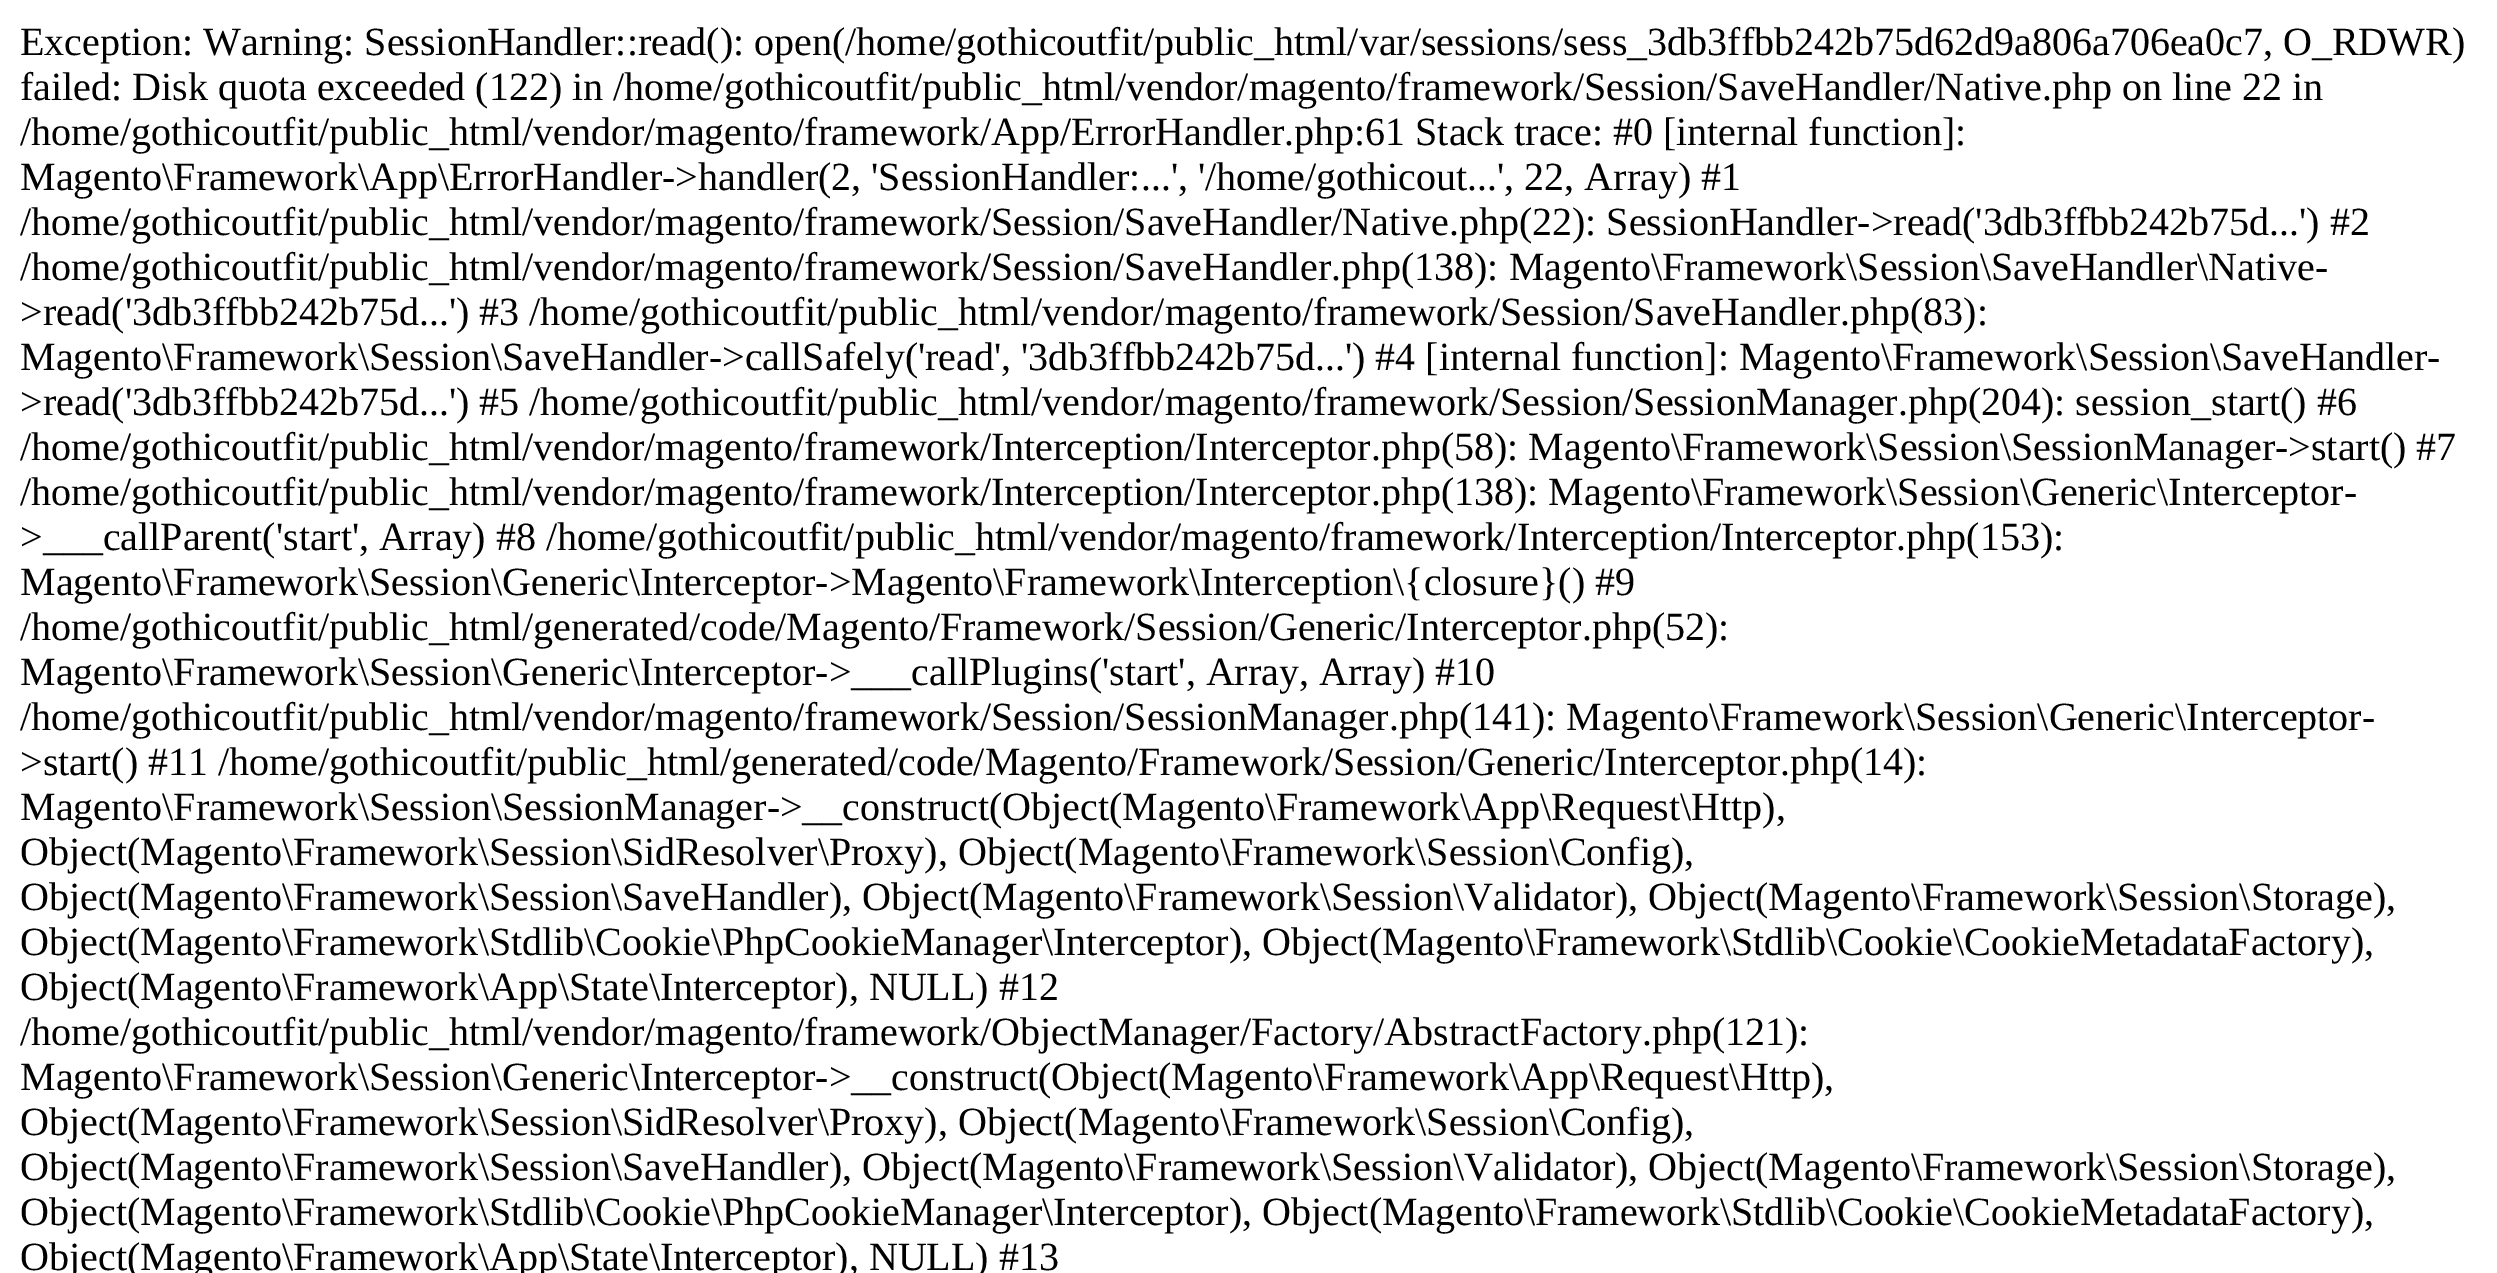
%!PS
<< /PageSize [2497 1273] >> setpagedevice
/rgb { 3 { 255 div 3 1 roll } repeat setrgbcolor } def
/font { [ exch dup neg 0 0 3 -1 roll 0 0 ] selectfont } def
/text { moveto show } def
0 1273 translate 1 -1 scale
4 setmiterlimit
255 255 255 rgb
0 0 2497 1273 rectfill
/LiberationSerif-Regular 40 font
0 0 0 rgb
(Exception: Warning: SessionHandler::read\(\): open\(/home/gothicoutfit/public_html/var/sessions/sess_3db3ffbb242b75d62d9a806a706ea0c7, O_RDWR\)) 20 55 text
(failed: Disk quota exceeded \(122\) in /home/gothicoutfit/public_html/vendor/magento/framework/Session/SaveHandler/Native.php on line 22 in) 20 100 text
(/home/gothicoutfit/public_html/vendor/magento/framework/App/ErrorHandler.php:61 Stack trace: #0 [internal function]:) 20 145 text
(Magento\\Framework\\App\\ErrorHandler->handler\(2, 'SessionHandler:...', '/home/gothicout...', 22, Array\) #1) 20 190 text
(/home/gothicoutfit/public_html/vendor/magento/framework/Session/SaveHandler/Native.php\(22\): SessionHandler->read\('3db3ffbb242b75d...'\) #2) 20 235 text
(/home/gothicoutfit/public_html/vendor/magento/framework/Session/SaveHandler.php\(138\): Magento\\Framework\\Session\\SaveHandler\\Native-) 20 280 text
(>read\('3db3ffbb242b75d...'\) #3 /home/gothicoutfit/public_html/vendor/magento/framework/Session/SaveHandler.php\(83\):) 20 325 text
(Magento\\Framework\\Session\\SaveHandler->callSafely\('read', '3db3ffbb242b75d...'\) #4 [internal function]: Magento\\Framework\\Session\\SaveHandler-) 20 370 text
(>read\('3db3ffbb242b75d...'\) #5 /home/gothicoutfit/public_html/vendor/magento/framework/Session/SessionManager.php\(204\): session_start\(\) #6) 20 415 text
(/home/gothicoutfit/public_html/vendor/magento/framework/Interception/Interceptor.php\(58\): Magento\\Framework\\Session\\SessionManager->start\(\) #7) 20 460 text
(/home/gothicoutfit/public_html/vendor/magento/framework/Interception/Interceptor.php\(138\): Magento\\Framework\\Session\\Generic\\Interceptor-) 20 505 text
(>___callParent\('start', Array\) #8 /home/gothicoutfit/public_html/vendor/magento/framework/Interception/Interceptor.php\(153\):) 20 550 text
(Magento\\Framework\\Session\\Generic\\Interceptor->Magento\\Framework\\Interception\\{closure}\(\) #9) 20 595 text
(/home/gothicoutfit/public_html/generated/code/Magento/Framework/Session/Generic/Interceptor.php\(52\):) 20 640 text
(Magento\\Framework\\Session\\Generic\\Interceptor->___callPlugins\('start', Array, Array\) #10) 20 685 text
(/home/gothicoutfit/public_html/vendor/magento/framework/Session/SessionManager.php\(141\): Magento\\Framework\\Session\\Generic\\Interceptor-) 20 730 text
(>start\(\) #11 /home/gothicoutfit/public_html/generated/code/Magento/Framework/Session/Generic/Interceptor.php\(14\):) 20 775 text
(Magento\\Framework\\Session\\SessionManager->__construct\(Object\(Magento\\Framework\\App\\Request\\Http\),) 20 820 text
(Object\(Magento\\Framework\\Session\\SidResolver\\Proxy\), Object\(Magento\\Framework\\Session\\Config\),) 20 865 text
(Object\(Magento\\Framework\\Session\\SaveHandler\), Object\(Magento\\Framework\\Session\\Validator\), Object\(Magento\\Framework\\Session\\Storage\),) 20 910 text
(Object\(Magento\\Framework\\Stdlib\\Cookie\\PhpCookieManager\\Interceptor\), Object\(Magento\\Framework\\Stdlib\\Cookie\\CookieMetadataFactory\),) 20 955 text
(Object\(Magento\\Framework\\App\\State\\Interceptor\), NULL\) #12) 20 1000 text
(/home/gothicoutfit/public_html/vendor/magento/framework/ObjectManager/Factory/AbstractFactory.php\(121\):) 20 1045 text
(Magento\\Framework\\Session\\Generic\\Interceptor->__construct\(Object\(Magento\\Framework\\App\\Request\\Http\),) 20 1090 text
(Object\(Magento\\Framework\\Session\\SidResolver\\Proxy\), Object\(Magento\\Framework\\Session\\Config\),) 20 1135 text
(Object\(Magento\\Framework\\Session\\SaveHandler\), Object\(Magento\\Framework\\Session\\Validator\), Object\(Magento\\Framework\\Session\\Storage\),) 20 1180 text
(Object\(Magento\\Framework\\Stdlib\\Cookie\\PhpCookieManager\\Interceptor\), Object\(Magento\\Framework\\Stdlib\\Cookie\\CookieMetadataFactory\),) 20 1225 text
(Object\(Magento\\Framework\\App\\State\\Interceptor\), NULL\) #13) 20 1270 text
showpage
